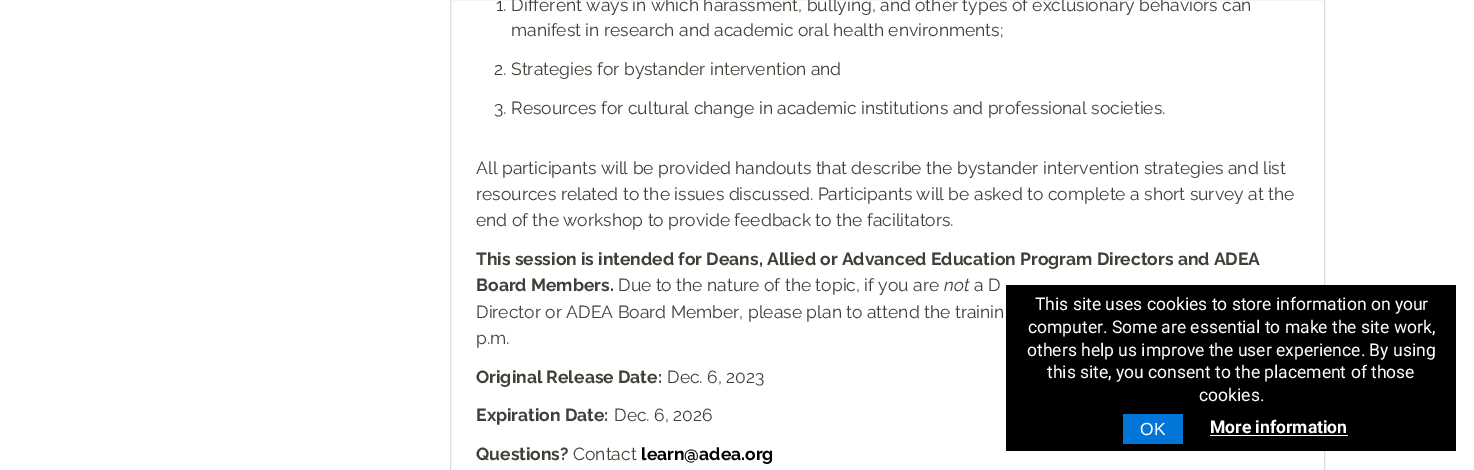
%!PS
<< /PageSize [1474 470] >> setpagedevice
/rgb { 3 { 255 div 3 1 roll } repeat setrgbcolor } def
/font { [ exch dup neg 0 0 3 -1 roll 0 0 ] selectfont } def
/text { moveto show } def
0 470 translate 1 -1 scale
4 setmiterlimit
255 255 255 rgb
0 0 1474 470 rectfill
221 221 221 rgb
450.5 -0.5 874 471 rectstroke
0 0 0 rgb
1006 285 450 166 rectfill
2 117 216 rgb
1123 414 60 30 rectfill
255 255 255 rgb
1210 435 138 1 rectfill
/Raleway-Thin 17.5 font
66 63 56 rgb
(1. Different ways in which harassment, bullying, and other types of exclusionary behaviors can) 496 11 text
(manifest in research and academic oral health environments;) 511 36 text
(2. Strategies for bystander intervention and) 494 75 text
(3. Resources for cultural change in academic institutions and professional societies.) 494 114 text
(All participants will be provided handouts that describe the bystander intervention strategies and list) 476 174 text
(resources related to the issues discussed. Participants will be asked to complete a short survey at the) 476 200 text
(end of the workshop to provide feedback to the facilitators.) 476 226 text
/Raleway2-Thin 17.5 font
(This session is intended for Deans, Allied or Advanced Education Program Directors and ADEA) 476 265 text
(Board Members.) 476 291 text
/Raleway-Thin 17.5 font
(Due to the nature of the topic, if you are) 618 291 text
/Raleway-ThinItalic 17.5 font
(not) 944 291 text
/Raleway-Thin 17.5 font
(a D) 974 291 text
(Director or ADEA Board Member, please plan to attend the trainin) 476 318 text
(p.m.) 476 344 text
/Raleway2-Thin 17.5 font
(Original Release Date:) 476 383 text
/Raleway-Thin 17.5 font
(Dec. 6, 2023) 667 383 text
/Raleway2-Thin 17.5 font
(Expiration Date:) 476 421 text
/Raleway-Thin 17.5 font
(Dec. 6, 2026) 614 421 text
/Raleway2-Thin 17.5 font
(Questions?) 476 460 text
/Raleway-Thin 17.5 font
(Contact) 573 460 text
/Raleway2-Thin 17.5 font
0 0 0 rgb
(learn@adea.org) 641 460 text
/Roboto-Regular 17.5 font
255 255 255 rgb
(This site uses cookies to store information on your) 1035 310 text
(computer. Some are essential to make the site work,) 1028 333 text
(others help us improve the user experience. By using) 1027 356 text
(this site, you consent to the placement of those) 1047 378 text
(cookies.) 1199 401 text
/LiberationSans-Regular 17.5 font
(OK) 1140 435 text
/Roboto-Bold 17.5 font
(More information) 1210 433 text
showpage
